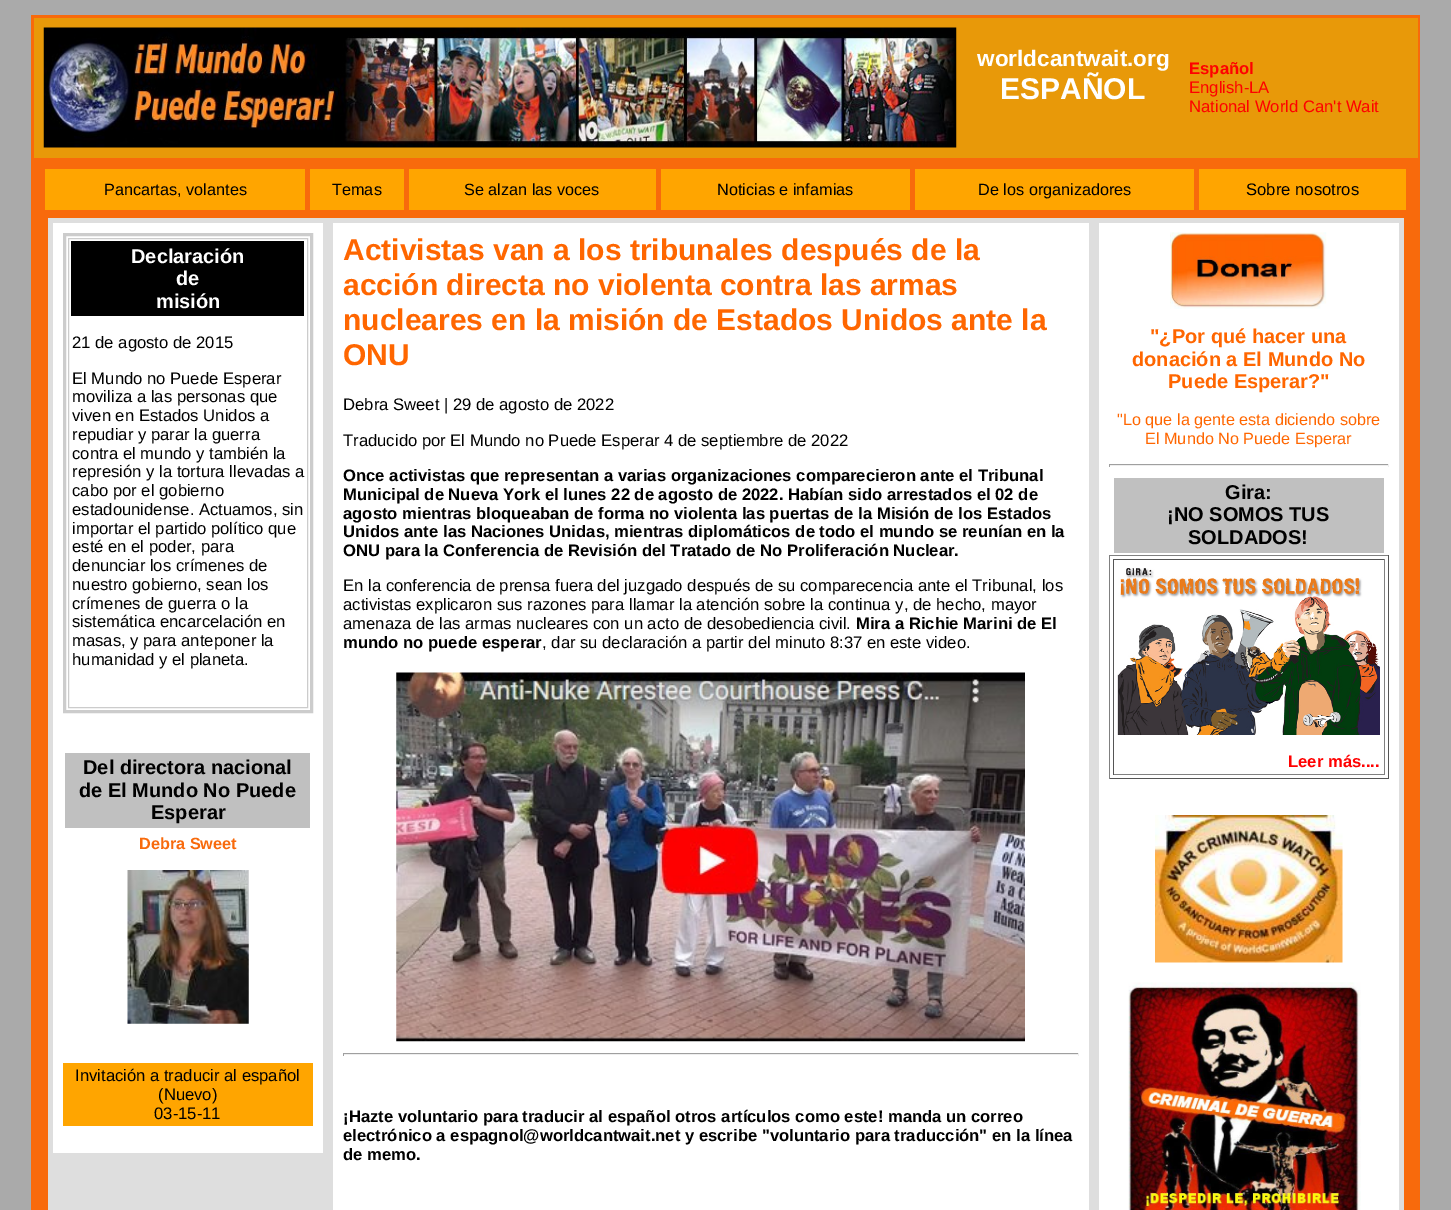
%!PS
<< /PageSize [1451 1210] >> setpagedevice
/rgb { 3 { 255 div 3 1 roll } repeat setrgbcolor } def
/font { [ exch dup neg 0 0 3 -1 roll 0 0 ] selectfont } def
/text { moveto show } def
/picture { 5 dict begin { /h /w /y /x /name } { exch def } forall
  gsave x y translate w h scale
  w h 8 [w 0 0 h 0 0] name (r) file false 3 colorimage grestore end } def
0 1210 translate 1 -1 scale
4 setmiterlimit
170 170 170 rgb
0 0 1451 1210 rectfill
248 106 12 rgb
31 15 1389 1195 rectfill
232 153 9 rgb
34 18 1384 140 rectfill
(img_01.rgb) 43 27 914 121 picture
255 165 0 rgb
45 169 260 41 rectfill
310 169 94 41 rectfill
409 169 247 41 rectfill
661 169 249 41 rectfill
915 169 279 41 rectfill
1199 169 207 41 rectfill
222 222 222 rgb
48 218 1356 992 rectfill
255 255 255 rgb
53 223 270 930 rectfill
204 204 204 rgb
3 setlinewidth
64.5 234.5 247 477 rectstroke
1 setlinewidth
68.5 238.5 239 469 rectstroke
0 0 0 rgb
71 241 233 75 rectfill
192 192 192 rgb
65 753 245 75 rectfill
(img_02.rgb) 127 870 122 154 picture
255 165 0 rgb
63 1063 250 63 rectfill
255 255 255 rgb
333 223 756 987 rectfill
(img_03.rgb) 396 672 629 370 picture
159 159 159 rgb
343 1053 736 1 rectfill
238 238 238 rgb
1078 1053 1 3 rectfill
343 1054 736 1 rectfill
159 159 159 rgb
343 1053 1 3 rectfill
255 255 255 rgb
1099 223 300 987 rectfill
(img_04.rgb) 1170 232 157 77 picture
159 159 159 rgb
1109 464 280 1 rectfill
238 238 238 rgb
1388 464 1 3 rectfill
1109 465 280 1 rectfill
159 159 159 rgb
1109 464 1 3 rectfill
192 192 192 rgb
1114 478 270 75 rectfill
128 128 128 rgb
1109 555 280 1 rectfill
85 85 85 rgb
1388 555 1 224 rectfill
1109 778 280 1 rectfill
128 128 128 rgb
1109 555 1 224 rectfill
85 85 85 rgb
1113 559 272 1 rectfill
128 128 128 rgb
1384 559 1 216 rectfill
1113 774 272 1 rectfill
85 85 85 rgb
1113 559 1 216 rectfill
(img_05.rgb) 1117 568 263 167 picture
(img_06.rgb) 1155 815 188 148 picture
(img_07.rgb) 1128 982 233 228 picture
/LiberationSans-Bold 22.5 font
255 255 255 rgb
(worldcantwait.org) 977 66 text
/LiberationSans-Bold 30 font
(ESPAÑOL) 1000 99 text
/LiberationSans-Bold 16.65 font
255 0 0 rgb
(Español) 1189 74 text
/LiberationSans-Regular 16.65 font
(English-LA) 1189 93 text
(National World Can't Wait) 1189 112 text
/LiberationSans-Regular 16.25 font
0 0 0 rgb
(Pancartas, volantes) 104 195 text
(Temas) 332 195 text
(Se alzan las voces) 464 195 text
(Noticias e infamias) 717 195 text
(De los organizadores) 978 195 text
/LiberationSans-Regular 16.65 font
(Sobre nosotros) 1246 195 text
/LiberationSans-Bold 20 font
255 255 255 rgb
(Declaración) 131 263 text
(de) 176 285 text
(misión) 156 308 text
/LiberationSans-Regular 16.65 font
0 0 0 rgb
(21 de agosto de 2015) 72 348 text
(El Mundo no Puede Esperar) 72 384 text
(moviliza a las personas que) 72 402 text
(viven en Estados Unidos a) 72 421 text
(repudiar y parar la guerra) 72 440 text
(contra el mundo y también la) 72 459 text
(represión y la tortura llevadas a) 72 477 text
(cabo por el gobierno) 72 496 text
(estadounidense. Actuamos, sin) 72 515 text
(importar el partido político que) 72 534 text
(esté en el poder, para) 72 552 text
(denunciar los crímenes de) 72 571 text
(nuestro gobierno, sean los) 72 590 text
(crímenes de guerra o la) 72 609 text
(sistemática encarcelación en) 72 627 text
(masas, y para anteponer la) 72 646 text
(humanidad y el planeta.) 72 665 text
/LiberationSans-Bold 20 font
(Del directora nacional) 83 774 text
(de El Mundo No Puede) 79 797 text
(Esperar) 151 819 text
/LiberationSans-Bold 16.25 font
248 106 12 rgb
(Debra Sweet) 139 849 text
/LiberationSans-Regular 16.65 font
0 0 0 rgb
(Invitación a traducir al español) 75 1081 text
(\(Nuevo\)) 158 1100 text
(03-15-11) 154 1119 text
/LiberationSans-Bold 30 font
255 102 0 rgb
(Activistas van a los tribunales después de la) 343 260 text
(acción directa no violenta contra las armas) 343 295 text
(nucleares en la misión de Estados Unidos ante la) 343 330 text
(ONU) 343 365 text
/LiberationSans-Regular 16.65 font
0 0 0 rgb
(Debra Sweet | 29 de agosto de 2022) 343 410 text
(Traducido por El Mundo no Puede Esperar 4 de septiembre de 2022) 343 446 text
/LiberationSans-Bold 16.65 font
(Once activistas que representan a varias organizaciones comparecieron ante el Tribunal) 343 481 text
(Municipal de Nueva York el lunes 22 de agosto de 2022. Habían sido arrestados el 02 de) 343 500 text
(agosto mientras bloqueaban de forma no violenta las puertas de la Misión de los Estados) 343 519 text
(Unidos ante las Naciones Unidas, mientras diplomáticos de todo el mundo se reunían en la) 343 537 text
(ONU para la Conferencia de Revisión del Tratado de No Proliferación Nuclear.) 343 556 text
/LiberationSans-Regular 16.65 font
(En la conferencia de prensa fuera del juzgado después de su comparecencia ante el Tribunal, los) 343 591 text
(activistas explicaron sus razones para llamar la atención sobre la continua y, de hecho, mayor) 343 610 text
(amenaza de las armas nucleares con un acto de desobediencia civil.) 343 629 text
/LiberationSans-Bold 16.65 font
(Mira a Richie Marini de El) 856 629 text
(mundo no puede esperar) 343 648 text
/LiberationSans-Regular 16.65 font
(, dar su declaración a partir del minuto 8:37 en este video.) 542 648 text
/LiberationSans-Bold 16.65 font
(¡Hazte voluntario para traducir al español otros artículos como este! manda un correo) 343 1122 text
(electrónico a espagnol@worldcantwait.net y escribe "voluntario para traducción" en la línea) 343 1141 text
(de memo.) 343 1160 text
/LiberationSans-Bold 20 font
255 102 0 rgb
("¿Por qué hacer una) 1150 343 text
(donación a El Mundo No) 1132 366 text
(Puede Esperar?") 1168 388 text
/LiberationSans-Regular 16.25 font
("Lo que la gente esta diciendo sobre) 1117 425 text
(El Mundo No Puede Esperar) 1145 444 text
/LiberationSans-Bold 20 font
0 0 0 rgb
(Gira:) 1225 499 text
(¡NO SOMOS TUS) 1167 521 text
(SOLDADOS!) 1188 544 text
/LiberationSans-Bold 16.65 font
255 0 0 rgb
(Leer más....) 1288 767 text
showpage
